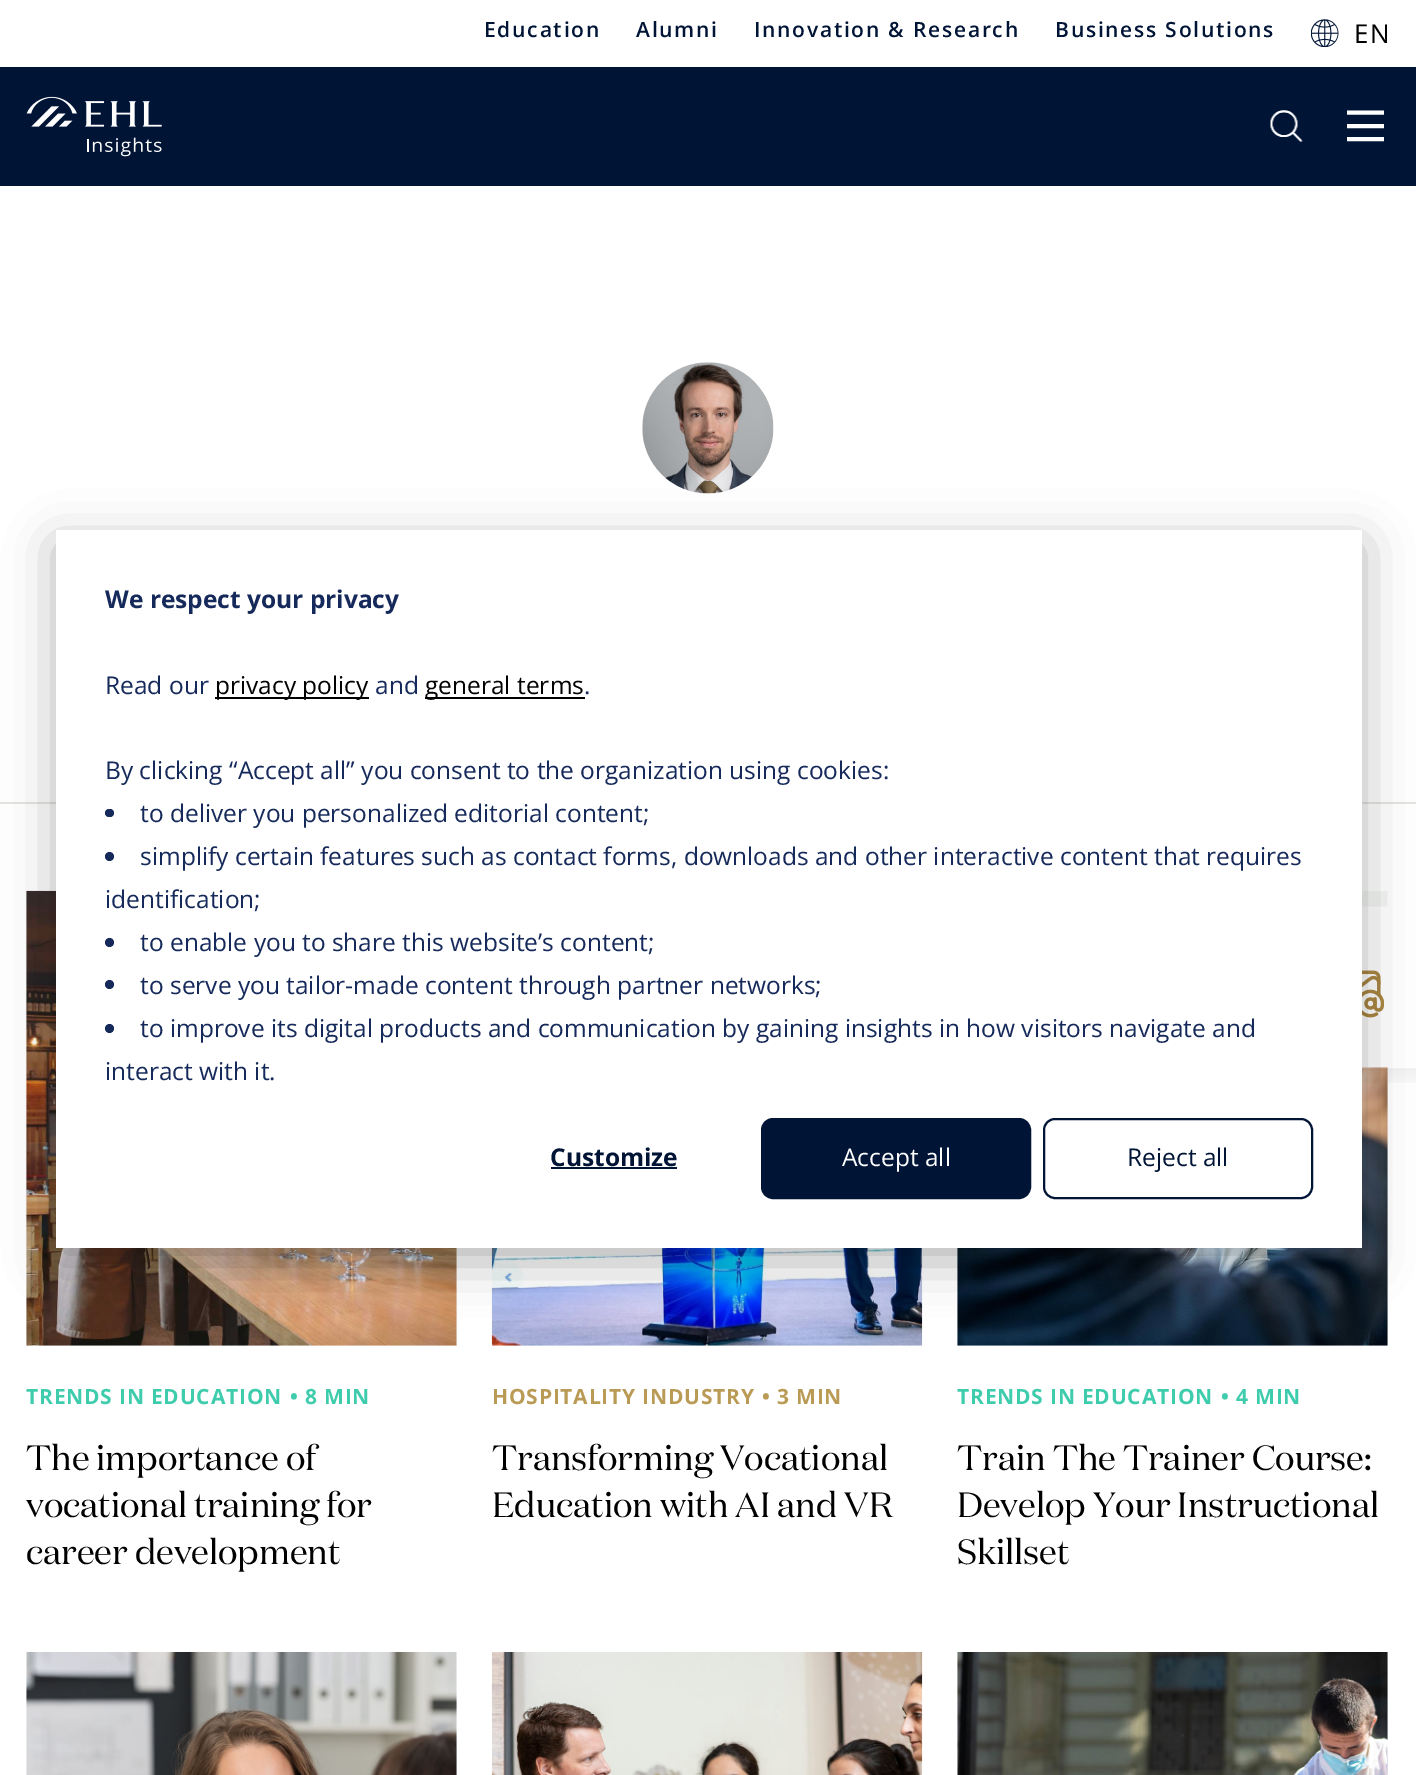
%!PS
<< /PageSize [1416 1775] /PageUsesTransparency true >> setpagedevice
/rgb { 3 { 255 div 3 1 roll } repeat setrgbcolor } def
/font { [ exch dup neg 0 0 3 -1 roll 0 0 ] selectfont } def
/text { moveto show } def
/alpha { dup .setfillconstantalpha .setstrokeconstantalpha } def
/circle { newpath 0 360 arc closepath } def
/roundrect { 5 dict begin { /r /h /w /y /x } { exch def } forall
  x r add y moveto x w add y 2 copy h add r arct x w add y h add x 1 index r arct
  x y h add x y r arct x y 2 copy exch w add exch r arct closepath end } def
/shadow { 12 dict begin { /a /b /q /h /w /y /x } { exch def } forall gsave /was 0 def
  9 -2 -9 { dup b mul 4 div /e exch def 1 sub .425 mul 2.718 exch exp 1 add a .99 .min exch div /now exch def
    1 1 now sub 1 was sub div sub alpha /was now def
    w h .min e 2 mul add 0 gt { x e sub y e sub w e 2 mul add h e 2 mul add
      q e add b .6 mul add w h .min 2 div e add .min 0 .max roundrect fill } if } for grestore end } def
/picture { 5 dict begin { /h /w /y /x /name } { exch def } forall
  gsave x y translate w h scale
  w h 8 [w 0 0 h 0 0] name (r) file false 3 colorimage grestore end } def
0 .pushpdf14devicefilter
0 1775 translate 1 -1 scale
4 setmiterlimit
255 255 255 rgb
0 0 1416 1775 rectfill
(img_01.rgb) 1311 19 28 28 picture
0 20 54 rgb
0 67 1416 119 rectfill
(img_02.rgb) 26 96 136 61 picture
(img_03.rgb) 1270 110 33 32 picture
255 255 255 rgb
4 setlinewidth
1347 112.5 moveto 37 0 rlineto 1347 112.5 moveto 37 0 rlineto 1347 126 moveto 37 0 rlineto 1347 139 moveto 37 0 rlineto stroke
(img_04.rgb) 642 362 132 132 picture
(img_09.rgb) 957 890 431 456 picture
(img_05.rgb) 1362 906 54 177 picture
(img_06.rgb) 1362 970 22 48 picture
228 228 225 rgb
0 802 1416 2 rectfill
(img_07.rgb) 26 890 431 456 picture
(img_08.rgb) 491 1248 432 98 picture
(img_10.rgb) 26 1652 431 123 picture
(img_11.rgb) 491 1652 432 123 picture
(img_12.rgb) 957 1652 431 123 picture
0 0 0 rgb
56 544 1306 718 0 24.5 0.28 shadow
255 255 255 rgb
56 530 1306 718 rectfill
0 0 0 rgb
215 697 154 2 rectfill
425 697 160 2 rectfill
21 41 90 rgb
105 809 9 8 4 roundrect fill
109.5 856.5 4.5 circle fill
109.5 942.5 4.5 circle fill
109.5 984.5 4.5 circle fill
109.5 1028.5 4.5 circle fill
0 20 54 rgb
551 1167 126 2 rectfill
762 1119 268 79 11 roundrect gsave fill grestore
2 setlinewidth
stroke
1044 1119 268 79 11 roundrect stroke
/OpenSans-SemiBold 21 font
484 37 moveto 1.75 0 (Education) ashow
636 37 moveto 1.75 0 (Alumni) ashow
754 37 moveto 1.75 0 (Innovation & Research) ashow
1055 37 moveto 1.75 0 (Business Solutions) ashow
/OpenSans-Regular 26 font
0 0 0 rgb
1354 43 moveto 2 0 (EN) ashow
/OpenSans-Bold 21 font
62 204 173 rgb
26 1404 moveto 0.8 0 (TRENDS IN EDUCATION) ashow
290 1404 moveto 0.8 0 (• 8 MIN) ashow
/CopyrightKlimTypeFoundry-Regular 35 font
0 0 0 rgb
(The importance of) 26 1470 text
(vocational training for) 26 1517 text
(career development) 26 1564 text
/OpenSans-Bold 21 font
186 155 85 rgb
492 1404 moveto 0.8 0 (HOSPITALITY INDUSTRY) ashow
762 1404 moveto 0.8 0 (• 3 MIN) ashow
/CopyrightKlimTypeFoundry-Regular 35 font
0 0 0 rgb
(Transforming Vocational) 492 1470 text
(Education with AI and VR) 492 1517 text
/OpenSans-Bold 21 font
62 204 173 rgb
957 1404 moveto 0.8 0 (TRENDS IN EDUCATION) ashow
1221 1404 moveto 0.8 0 (• 4 MIN) ashow
/CopyrightKlimTypeFoundry-Regular 35 font
0 0 0 rgb
(Train The Trainer Course:) 957 1470 text
(Develop Your Instructional) 957 1517 text
(Skillset) 957 1564 text
/OpenSans-Bold 24.5 font
21 41 90 rgb
(We respect your privacy) 105 608 text
/OpenSans-Regular 24.5 font
(Read our) 105 694 text
0 0 0 rgb
(privacy policy) 215 694 text
21 41 90 rgb
(and) 375 694 text
0 0 0 rgb
(general terms) 425 694 text
21 41 90 rgb
(.) 584 694 text
(By clicking “Accept all” you consent to the organization using cookies:) 105 779 text
(to deliver you personalized editorial content;) 140 822 text
(simplify certain features such as contact forms, downloads and other interactive content that requires) 140 865 text
(identification;) 105 908 text
(to enable you to share this website’s content;) 140 951 text
(to serve you tailor-made content through partner networks;) 140 994 text
(to improve its digital products and communication by gaining insights in how visitors navigate and) 140 1037 text
(interact with it.) 105 1080 text
/OpenSans-Bold 24.5 font
0 20 54 rgb
(Customize) 550 1166 text
/OpenSans-Regular 24.5 font
255 255 255 rgb
(Accept all) 842 1166 text
0 20 54 rgb
(Reject all) 1127 1166 text
.poppdf14devicefilter showpage
